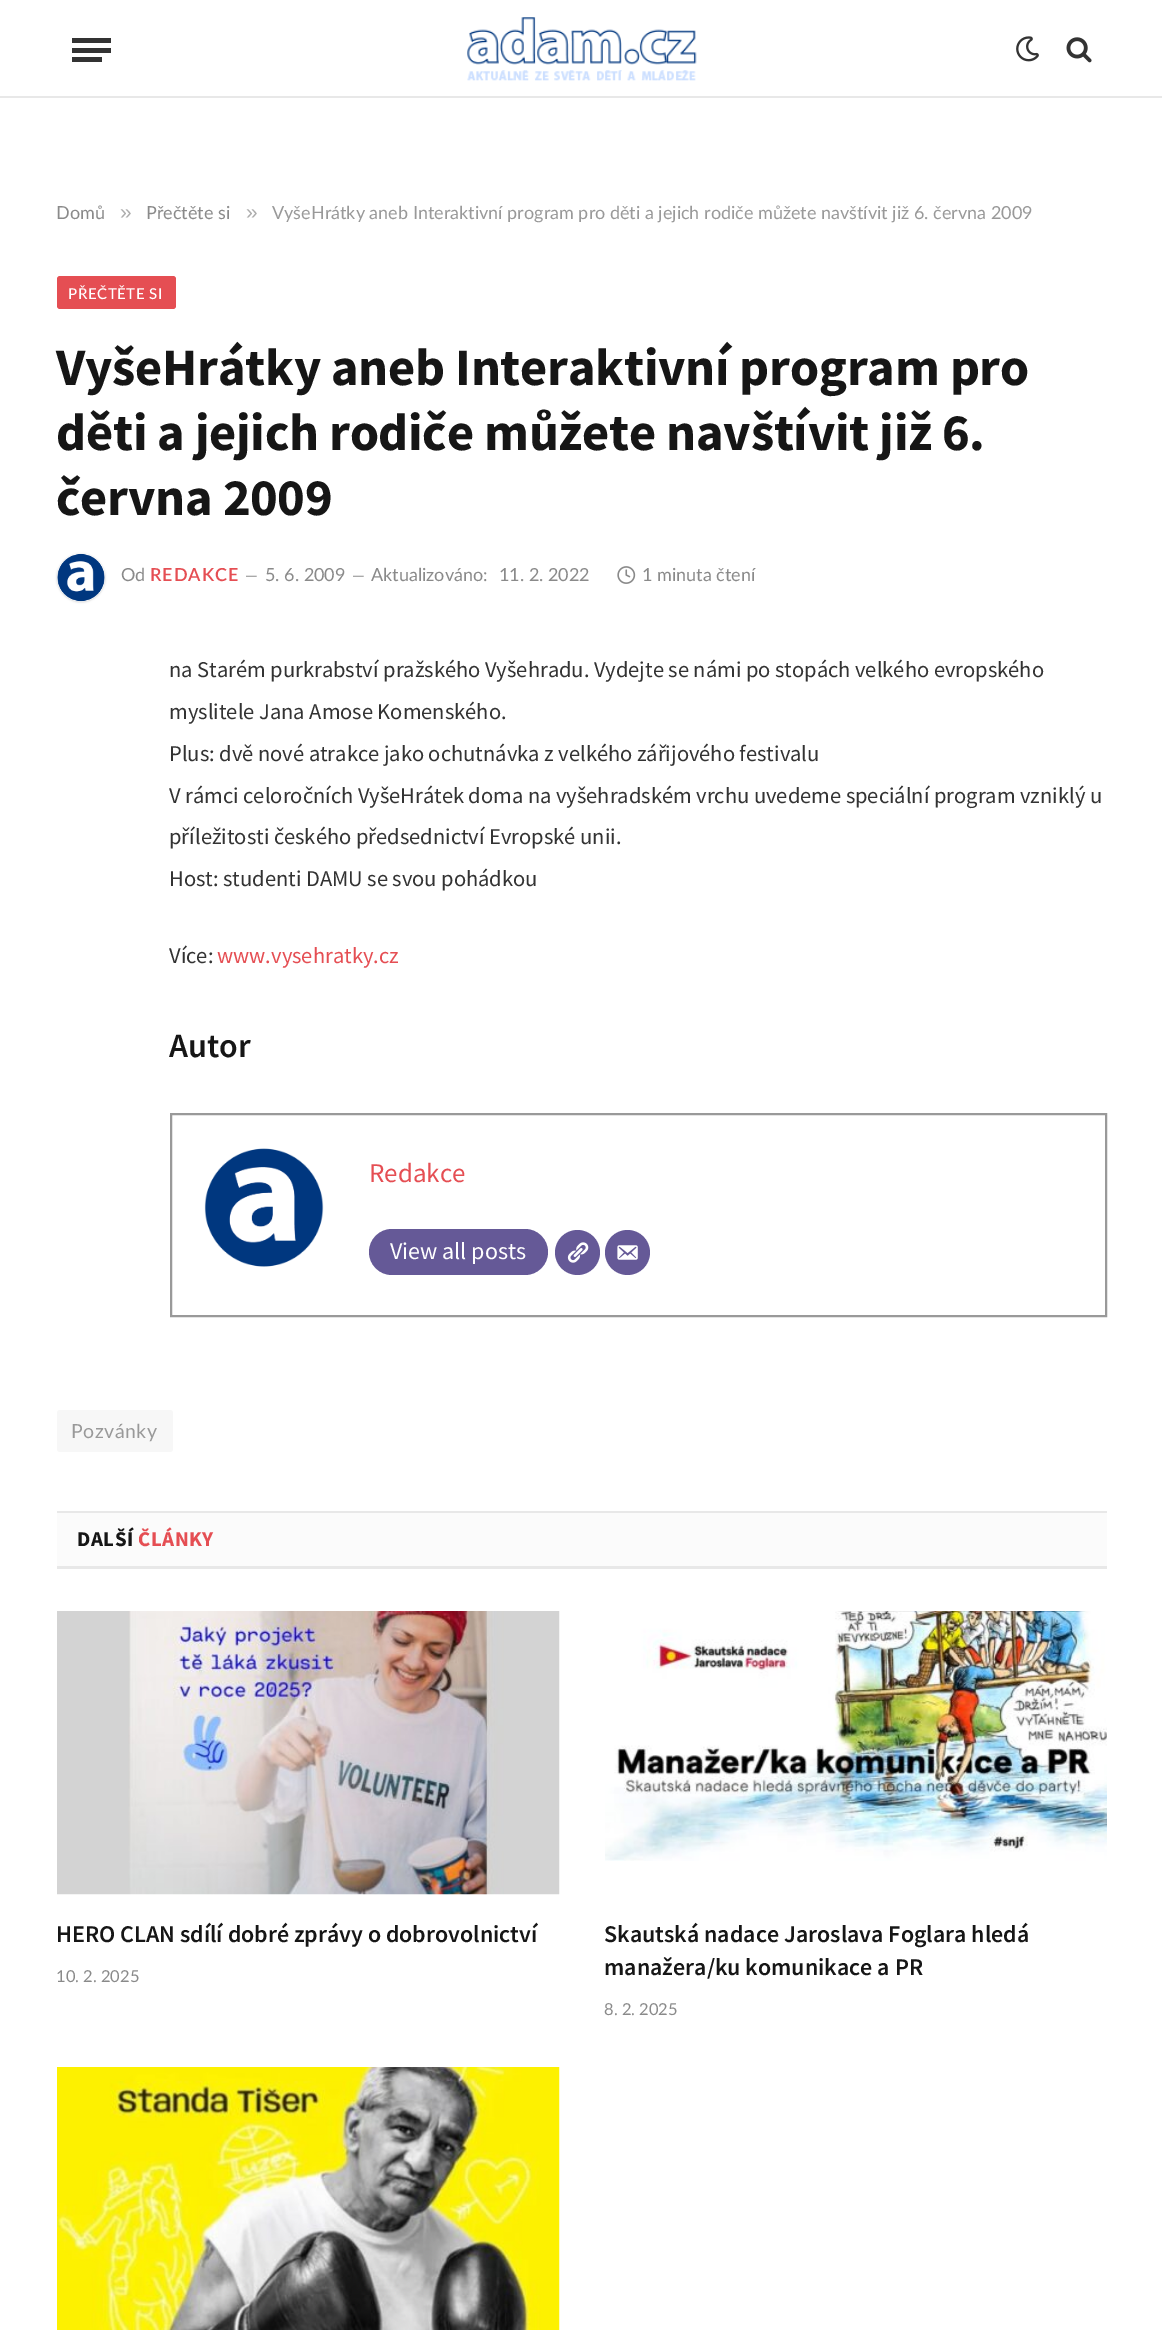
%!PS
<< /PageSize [1162 2330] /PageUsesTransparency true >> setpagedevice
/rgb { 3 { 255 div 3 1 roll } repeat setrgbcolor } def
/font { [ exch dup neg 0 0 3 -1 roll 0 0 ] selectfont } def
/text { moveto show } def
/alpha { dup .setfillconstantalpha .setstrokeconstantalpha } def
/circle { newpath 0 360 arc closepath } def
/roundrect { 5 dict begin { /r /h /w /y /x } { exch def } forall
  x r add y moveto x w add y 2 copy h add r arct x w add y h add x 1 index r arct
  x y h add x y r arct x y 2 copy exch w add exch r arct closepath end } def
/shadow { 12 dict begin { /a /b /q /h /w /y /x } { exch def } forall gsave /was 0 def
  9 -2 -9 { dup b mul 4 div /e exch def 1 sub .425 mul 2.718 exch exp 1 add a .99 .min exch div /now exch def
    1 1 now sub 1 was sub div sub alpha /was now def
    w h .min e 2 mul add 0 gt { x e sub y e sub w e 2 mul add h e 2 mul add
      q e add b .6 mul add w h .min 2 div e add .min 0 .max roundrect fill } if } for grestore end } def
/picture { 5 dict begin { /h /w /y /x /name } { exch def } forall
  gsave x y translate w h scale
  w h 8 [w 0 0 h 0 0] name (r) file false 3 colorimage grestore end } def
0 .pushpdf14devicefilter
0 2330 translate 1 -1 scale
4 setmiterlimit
255 255 255 rgb
0 0 1162 2330 rectfill
232 232 232 rgb
0 96 1162 2 rectfill
51 51 51 rgb
72 57 30 5 rectfill
72 38 39 5 rectfill
72 48 39 5 rectfill
(img_01.rgb) 467 17 230 64 picture
(img_02.rgb) 1016 36 23 26 picture
(img_03.rgb) 1066 37 26 26 picture
229 78 83 rgb
57 276 119 33 3 roundrect fill
0 0 0 rgb
57 554 48 48 24 1 0.2 shadow
(img_04.rgb) 57 553 48 49 picture
(img_05.rgb) 617 566 19 18 picture
153 153 153 rgb
2 setlinewidth
171 1114 935 202 rectstroke
(img_06.rgb) 204 1148 120 119 picture
101 89 151 rgb
369 1229 179 46 23 roundrect fill
577.5 1252.5 22.5 circle fill
(img_07.rgb) 567 1242 22 21 picture
627.5 1252.5 22.5 circle fill
(img_08.rgb) 617 1245 21 15 picture
247 247 247 rgb
57 1410 116 42 3 roundrect fill
251 251 251 rgb
57 1513 1050 53 rectfill
232 232 232 rgb
57 1511 1050 2 rectfill
57 1566 1050 3 rectfill
(img_09.rgb) 57 1611 503 284 picture
(img_10.rgb) 605 1611 502 250 picture
(img_11.rgb) 57 2067 503 263 picture
/Lato-Regular 18 font
138 138 138 rgb
(Domů) 56 219 text
/LiberationSans-Regular 21 font
173 173 173 rgb
(») 120 219 text
/Lato-Regular 18 font
138 138 138 rgb
(Přečtěte si) 146 219 text
/LiberationSans-Regular 21 font
173 173 173 rgb
(») 246 219 text
/Lato-Regular 18 font
153 153 153 rgb
(VyšeHrátky aneb Interaktivní program pro děti a jejich rodiče můžete navštívit již 6. června 2009) 272 219 text
/Lato-Medium 15 font
255 255 255 rgb
68 299 moveto 0.6 0 (PŘEČTĚTE SI) ashow
/SourceSansPro-Bold 52.5 font
22 22 22 rgb
56 385 moveto -0.25 0 (VyšeHrátky aneb Interaktivní program pro) ashow
56 450 moveto -0.25 0 (děti a jejich rodiče můžete navštívit již 6.) ashow
56 515 moveto -0.25 0 (června 2009) ashow
/Lato-Regular 18 font
138 138 138 rgb
(Od) 121 581 text
/Lato-SemiBold 18 font
229 78 83 rgb
150 581 moveto 1 0 (REDAKCE) ashow
/Lato-Regular 16 font
138 138 138 rgb
(—) 245 581 text
/Lato-Regular 18 font
(5. 6. 2009) 265 581 text
/Lato-Regular 16 font
(—) 352 581 text
/Lato-Regular 18 font
(Aktualizováno:) 371 581 text
(11. 2. 2022) 499 581 text
(1 minuta čtení) 642 581 text
/SourceSansPro-Regular 22.5 font
51 51 51 rgb
(na Starém purkrabství pražského Vyšehradu. Vydejte se námi po stopách velkého evropského) 169 677 text
(myslitele Jana Amose Komenského.) 169 719 text
(Plus: dvě nové atrakce jako ochutnávka z velkého zářijového festivalu) 169 761 text
(V rámci celoročních VyšeHrátek doma na vyšehradském vrchu uvedeme speciální program vzniklý u) 169 803 text
(příležitosti českého předsednictví Evropské unii.) 169 844 text
(Host: studenti DAMU se svou pohádkou) 169 886 text
(Více:) 169 963 text
229 78 83 rgb
(www.vysehratky.cz) 217 963 text
/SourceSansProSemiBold-SemiBold 34 font
22 22 22 rgb
(Autor) 169 1057 text
/SourceSansPro-Regular 27 font
229 78 83 rgb
(Redakce) 369 1182 text
/SourceSansPro-Regular 24 font
255 255 255 rgb
(View all posts) 390 1259 text
/Lato-Regular 19.5 font
153 153 153 rgb
71 1438 moveto 0.5 0 (Pozvánky) ashow
/SourceSansPro-Bold 21 font
22 22 22 rgb
77 1546 moveto 0.5 0 (DALŠÍ) ashow
229 78 83 rgb
138 1546 moveto 0.5 0 (ČLÁNKY) ashow
/SourceSansProSemiBold-SemiBold 24 font
22 22 22 rgb
(HERO CLAN sdílí dobré zprávy o dobrovolnictví) 56 1942 text
/Lato-Regular 16.5 font
138 138 138 rgb
(10. 2. 2025) 56 1982 text
/SourceSansProSemiBold-SemiBold 24 font
22 22 22 rgb
(Skautská nadace Jaroslava Foglara hledá) 604 1942 text
(manažera/ku komunikace a PR) 604 1975 text
/Lato-Regular 16.5 font
138 138 138 rgb
(8. 2. 2025) 604 2015 text
.poppdf14devicefilter showpage
